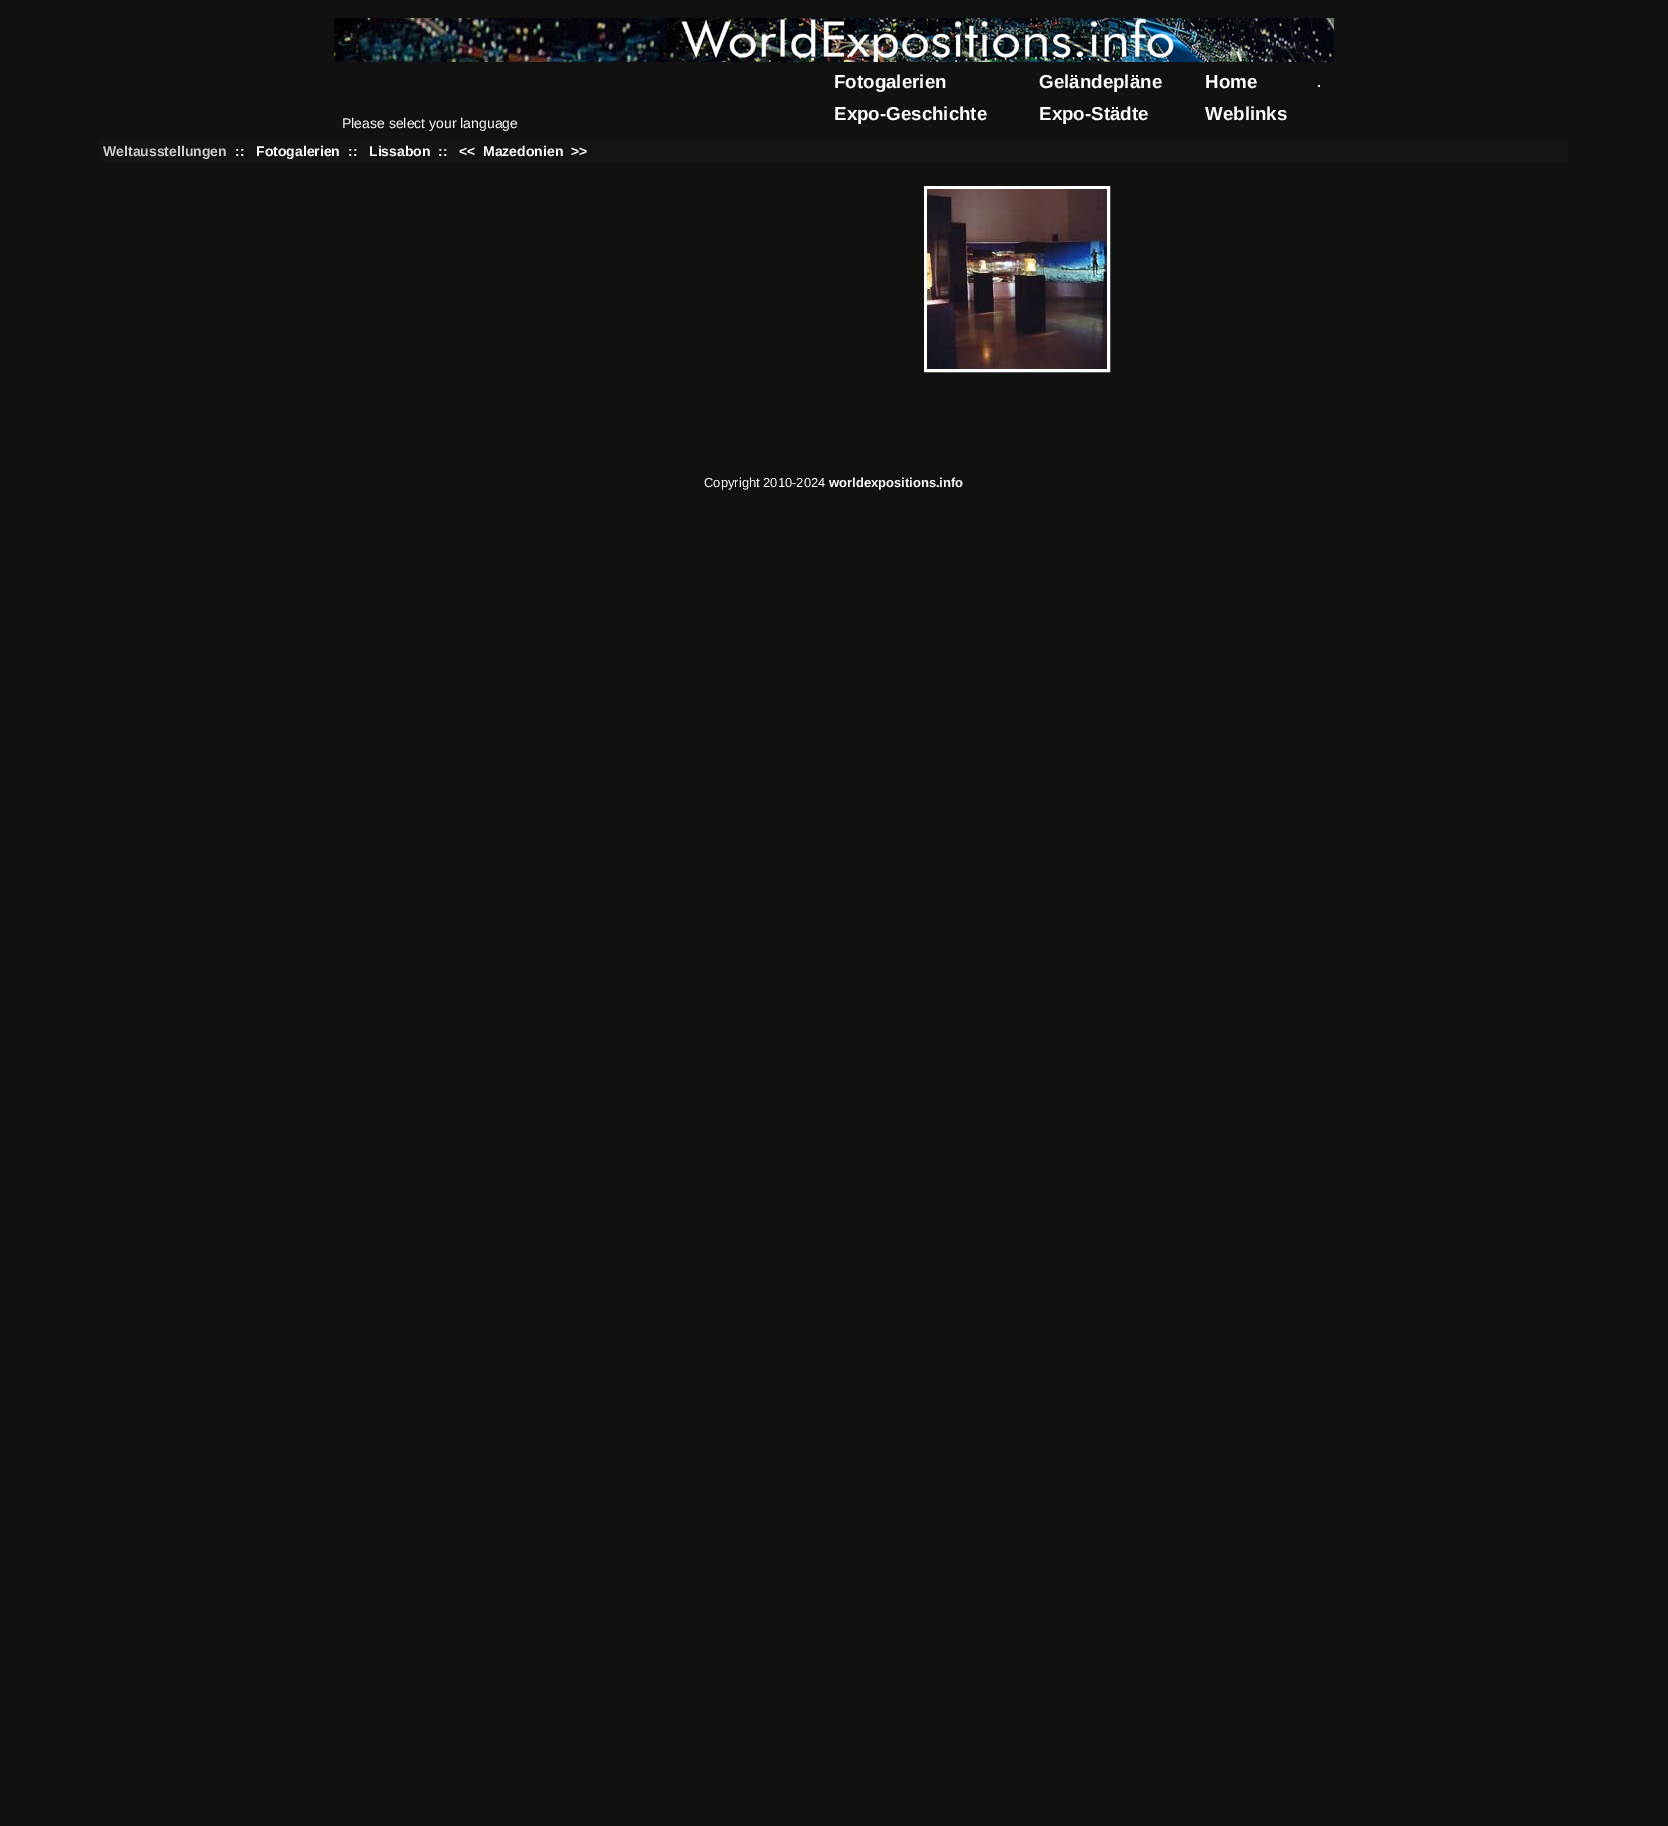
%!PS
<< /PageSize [1668 1826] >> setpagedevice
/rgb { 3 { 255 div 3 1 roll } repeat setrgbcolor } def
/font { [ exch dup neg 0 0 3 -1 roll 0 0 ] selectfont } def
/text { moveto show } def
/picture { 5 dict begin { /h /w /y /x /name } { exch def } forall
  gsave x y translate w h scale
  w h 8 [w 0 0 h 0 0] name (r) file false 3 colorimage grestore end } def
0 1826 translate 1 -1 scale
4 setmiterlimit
17 17 17 rgb
0 0 1668 1826 rectfill
(img_01.rgb) 334 18 1000 44 picture
20 20 20 rgb
100 140 1468 22 rectfill
255 255 255 rgb
3 setlinewidth
925.5 187.5 183 183 rectstroke
(img_02.rgb) 927 189 180 180 picture
/LiberationSans-Regular 14 font
(Please select your language) 342 128 text
/LiberationSans-Bold 18.75 font
(Fotogalerien) 834 88 text
(Geländepläne) 1039 88 text
(Home) 1205 88 text
/LiberationSans-Bold 14 font
(.) 1317 87 text
/LiberationSans-Bold 18.75 font
(Expo-Geschichte) 834 120 text
(Expo-Städte) 1039 120 text
(Weblinks) 1205 120 text
/LiberationSans-Bold 14 font
204 204 204 rgb
(Weltausstellungen) 103 156 text
255 255 255 rgb
(::) 235 156 text
(Fotogalerien) 256 156 text
(::) 348 156 text
(Lissabon) 369 156 text
(::) 438 156 text
(<<) 459 156 text
(Mazedonien) 483 156 text
(>>) 571 156 text
/LiberationSans-Regular 13 font
(Copyright 2010-2024) 704 487 text
/LiberationSans-Bold 13 font
(worldexpositions.info) 829 487 text
showpage
